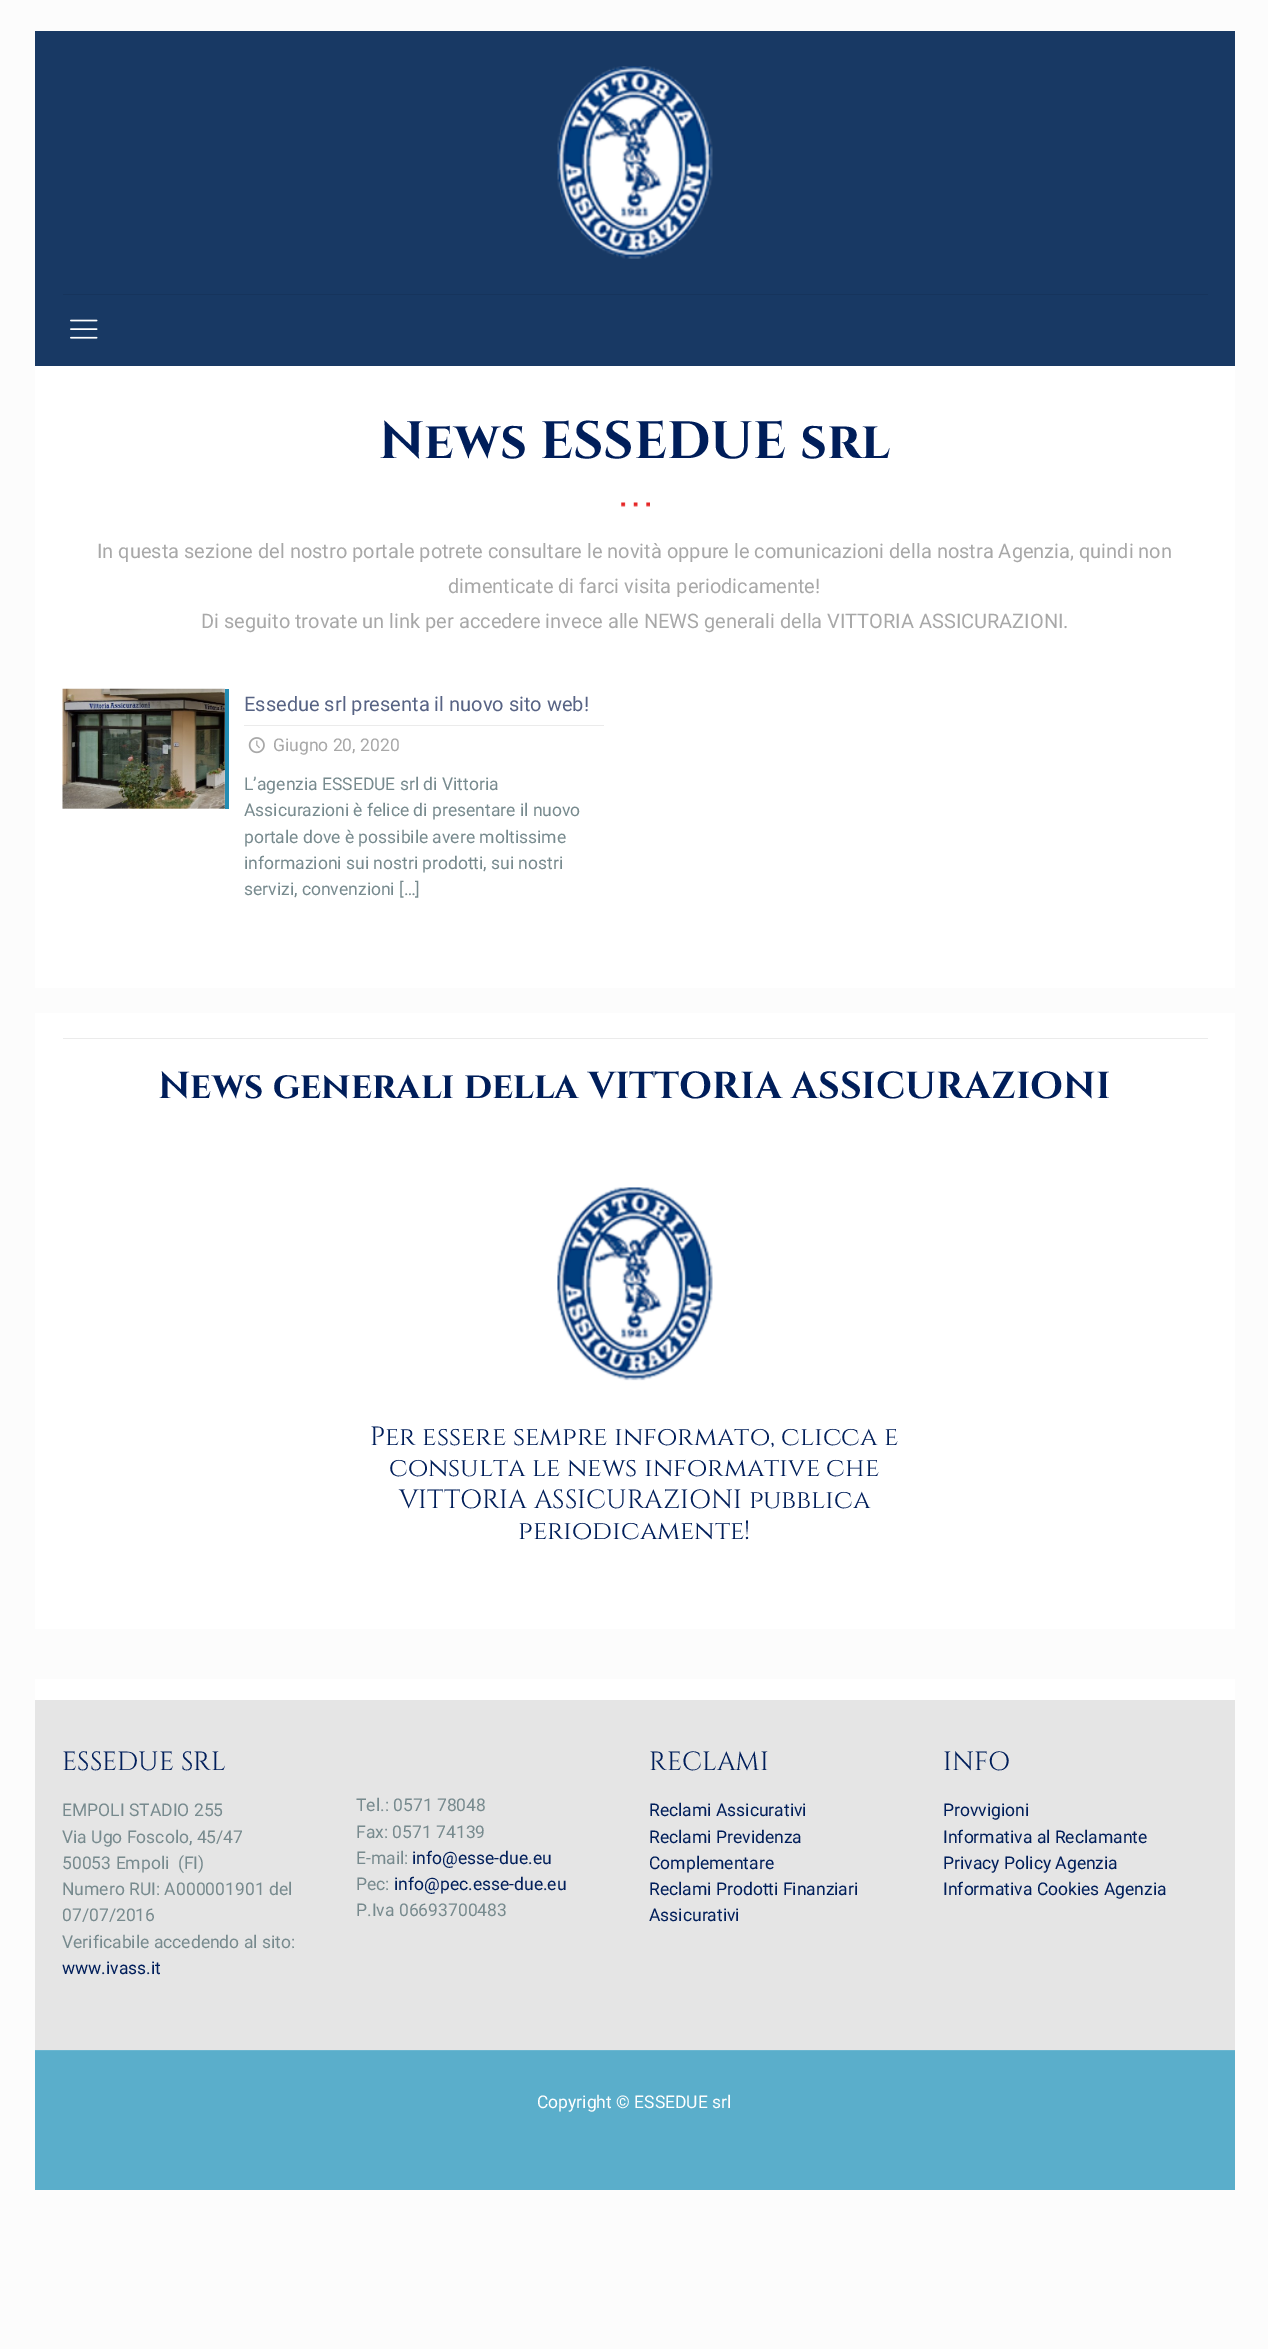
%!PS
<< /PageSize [1268 2349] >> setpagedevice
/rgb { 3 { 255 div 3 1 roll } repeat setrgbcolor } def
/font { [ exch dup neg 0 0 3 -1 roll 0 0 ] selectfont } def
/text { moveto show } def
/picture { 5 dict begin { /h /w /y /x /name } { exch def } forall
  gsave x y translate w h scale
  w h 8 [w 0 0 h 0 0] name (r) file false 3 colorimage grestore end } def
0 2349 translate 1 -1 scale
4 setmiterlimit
252 252 252 rgb
0 0 1268 2349 rectfill
24 57 100 rgb
35 31 1200 335 rectfill
22 52 92 rgb
63 294 1145 1 rectfill
(img_01.rgb) 557 66 156 193 picture
(img_02.rgb) 70 319 28 20 picture
255 255 255 rgb
35 366 1200 622 rectfill
(img_03.rgb) 621 502 29 5 picture
34 140 179 rgb
225 689 4 120 rectfill
(img_04.rgb) 62 688 163 121 picture
235 235 235 rgb
244 725 360 1 rectfill
(img_05.rgb) 248 737 17 17 picture
255 255 255 rgb
35 1013 1200 616 rectfill
235 235 235 rgb
63 1038 1145 1 rectfill
(img_06.rgb) 557 1187 156 194 picture
255 255 255 rgb
35 1679 1200 21 rectfill
229 229 229 rgb
35 1700 1200 350 rectfill
90 174 203 rgb
35 2051 1200 139 rectfill
107 182 208 rgb
35 2050 1200 1 rectfill
/Cinzel-Bold 52.5 font
0 30 90 rgb
(News ESSEDUE srl) 379 458 text
/Roboto-Regular 20 font
168 168 168 rgb
(In questa sezione del nostro portale potrete consultare le novità oppure le comunicazioni della nostra Agenzia, quindi non) 97 558 text
(dimenticate di farci visita periodicamente!) 448 593 text
(Di seguito trovate un link per accedere invece alle NEWS generali della VITTORIA ASSICURAZIONI.) 201 628 text
87 99 132 rgb
(Essedue srl presenta il nuovo sito web!) 244 711 text
/Roboto-Regular 17.5 font
168 168 168 rgb
(Giugno 20, 2020) 273 751 text
119 138 142 rgb
(L’agenzia ESSEDUE srl di Vittoria) 244 790 text
(Assicurazioni è felice di presentare il nuovo) 244 816 text
(portale dove è possibile avere moltissime) 244 843 text
(informazioni sui nostri prodotti, sui nostri) 244 869 text
(servizi, convenzioni […]) 244 895 text
/Cinzel-Bold 37.5 font
0 30 90 rgb
(News generali della VITTORIA ASSICURAZIONI) 158 1098 text
/Cinzel-Regular 26.25 font
(Per essere sempre informato, clicca e) 370 1445 text
(consulta le news informative che) 389 1476 text
(VITTORIA ASSICURAZIONI pubblica) 399 1508 text
(periodicamente!) 518 1539 text
(ESSEDUE SRL) 62 1770 text
/Roboto-Regular 17.5 font
119 138 142 rgb
(EMPOLI STADIO 255) 62 1816 text
(Via Ugo Foscolo, 45/47) 62 1843 text
(50053 Empoli  \(FI\)) 62 1869 text
(Numero RUI: A000001901 del) 62 1895 text
(07/07/2016) 62 1921 text
(Verificabile accedendo al sito:) 62 1948 text
0 30 90 rgb
(www.ivass.it) 62 1974 text
119 138 142 rgb
(Tel.: 0571 78048) 356 1811 text
(Fax: 0571 74139) 356 1838 text
(E-mail:) 356 1864 text
0 30 90 rgb
(info@esse-due.eu) 412 1864 text
119 138 142 rgb
(Pec:) 356 1890 text
0 30 90 rgb
(info@pec.esse-due.eu) 394 1890 text
119 138 142 rgb
(P.Iva 06693700483) 356 1916 text
/Cinzel-Regular 26.25 font
0 30 90 rgb
(RECLAMI) 649 1770 text
/Roboto-Regular 17.5 font
(Reclami Assicurativi) 649 1816 text
(Reclami Previdenza) 649 1843 text
(Complementare) 649 1869 text
(Reclami Prodotti Finanziari) 649 1895 text
(Assicurativi) 649 1921 text
/Cinzel-Regular 26.25 font
(INFO) 943 1770 text
/Roboto-Regular 17.5 font
(Provvigioni) 943 1816 text
(Informativa al Reclamante) 943 1843 text
(Privacy Policy Agenzia) 943 1869 text
(Informativa Cookies Agenzia) 943 1895 text
255 255 255 rgb
(Copyright © ESSEDUE srl) 537 2108 text
showpage
